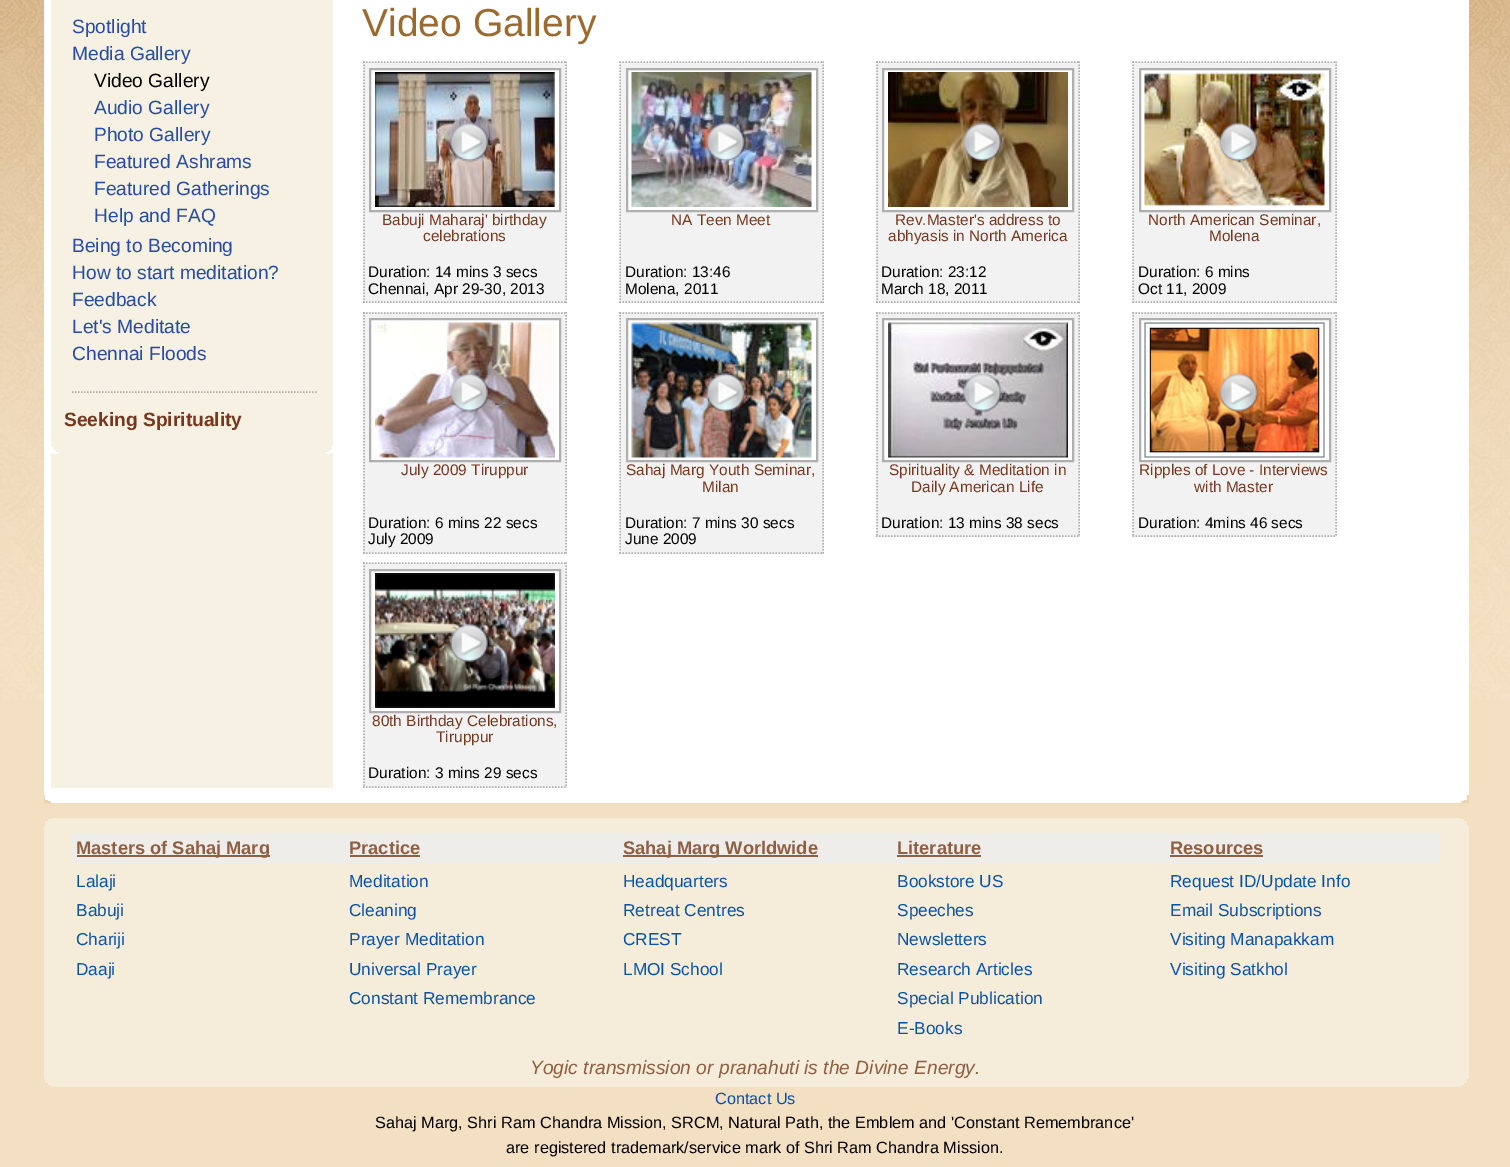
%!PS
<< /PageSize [1510 1167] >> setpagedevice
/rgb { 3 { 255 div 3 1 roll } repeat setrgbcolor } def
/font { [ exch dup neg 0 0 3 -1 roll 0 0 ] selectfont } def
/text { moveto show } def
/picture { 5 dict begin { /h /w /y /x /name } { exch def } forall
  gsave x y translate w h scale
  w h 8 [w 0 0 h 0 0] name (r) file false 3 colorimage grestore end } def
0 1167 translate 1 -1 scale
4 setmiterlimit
243 223 194 rgb
0 0 1510 1167 rectfill
(img_01.rgb) 0 0 1510 700 picture
255 255 255 rgb
44 0 1425 795 rectfill
246 241 226 rgb
51 0 282 788 rectfill
174 172 167 rgb
1.5 setlinewidth
[1.5 1.5] 0 setdash
72 392 moveto 246 0 rlineto stroke
255 255 255 rgb
51 446 282 7 rectfill
246 241 226 rgb
53 446 279 4 rectfill
56 450 273 2 rectfill
255 255 255 rgb
54 453 276 1 rectfill
246 241 226 rgb
59 452 267 2 rectfill
242 242 242 rgb
363 62 204 241 rectfill
175 175 176 rgb
363 62 moveto 204 0 rlineto stroke
566 61.5 moveto 0 241.5 rlineto stroke
363 302 moveto 204 0 rlineto stroke
364 61.5 moveto 0 241.5 rlineto stroke
255 255 255 rgb
370 69 moveto 190 0 rlineto 0 142 rlineto -190 0 rlineto closepath gsave fill grestore
175 175 176 rgb
2 setlinewidth
[] 0 setdash
stroke
(img_02.rgb) 375 72 180 135 picture
(img_03.rgb) 449 122 40 41 picture
242 242 242 rgb
620 62 204 241 rectfill
175 175 176 rgb
1.5 setlinewidth
[1.5 1.5] 0 setdash
619.5 62 moveto 204 0 rlineto stroke
823 61.5 moveto 0 241.5 rlineto stroke
619.5 302 moveto 204 0 rlineto stroke
620 61.5 moveto 0 241.5 rlineto stroke
255 255 255 rgb
627 69 moveto 190 0 rlineto 0 142 rlineto -190 0 rlineto closepath gsave fill grestore
175 175 176 rgb
2 setlinewidth
[] 0 setdash
stroke
(img_04.rgb) 631 72 181 135 picture
(img_05.rgb) 706 122 40 41 picture
242 242 242 rgb
876 62 204 241 rectfill
175 175 176 rgb
1.5 setlinewidth
[1.5 1.5] 0 setdash
876 62 moveto 204 0 rlineto stroke
1079 61.5 moveto 0 241.5 rlineto stroke
876 302 moveto 204 0 rlineto stroke
877 61.5 moveto 0 241.5 rlineto stroke
255 255 255 rgb
883 69 moveto 190 0 rlineto 0 142 rlineto -190 0 rlineto closepath gsave fill grestore
175 175 176 rgb
2 setlinewidth
[] 0 setdash
stroke
(img_06.rgb) 888 72 180 135 picture
(img_07.rgb) 962 122 41 40 picture
242 242 242 rgb
1133 62 204 241 rectfill
175 175 176 rgb
1.5 setlinewidth
[1.5 1.5] 0 setdash
1132.5 62 moveto 204 0 rlineto stroke
1336 61.5 moveto 0 241.5 rlineto stroke
1132.5 302 moveto 204 0 rlineto stroke
1133 61.5 moveto 0 241.5 rlineto stroke
255 255 255 rgb
1140 69 moveto 190 0 rlineto 0 142 rlineto -190 0 rlineto closepath gsave fill grestore
175 175 176 rgb
2 setlinewidth
[] 0 setdash
stroke
(img_08.rgb) 1144 72 181 135 picture
(img_09.rgb) 1219 122 40 41 picture
242 242 242 rgb
363 312 204 242 rectfill
175 175 176 rgb
1.5 setlinewidth
[1.5 1.5] 0 setdash
363 313 moveto 204 0 rlineto stroke
566 312 moveto 0 241.5 rlineto stroke
363 553 moveto 204 0 rlineto stroke
364 312 moveto 0 241.5 rlineto stroke
255 255 255 rgb
370 319 moveto 190 0 rlineto 0 142 rlineto -190 0 rlineto closepath gsave fill grestore
175 175 176 rgb
2 setlinewidth
[] 0 setdash
stroke
(img_10.rgb) 375 322 180 136 picture
(img_11.rgb) 449 373 40 40 picture
242 242 242 rgb
620 312 204 242 rectfill
175 175 176 rgb
1.5 setlinewidth
[1.5 1.5] 0 setdash
619.5 313 moveto 204 0 rlineto stroke
823 312 moveto 0 241.5 rlineto stroke
619.5 553 moveto 204 0 rlineto stroke
620 312 moveto 0 241.5 rlineto stroke
255 255 255 rgb
627 319 moveto 190 0 rlineto 0 142 rlineto -190 0 rlineto closepath gsave fill grestore
175 175 176 rgb
2 setlinewidth
[] 0 setdash
stroke
(img_12.rgb) 631 322 181 136 picture
(img_13.rgb) 706 373 40 40 picture
242 242 242 rgb
876 312 204 225 rectfill
175 175 176 rgb
1.5 setlinewidth
[1.5 1.5] 0 setdash
876 313 moveto 204 0 rlineto stroke
1079 312 moveto 0 225 rlineto stroke
876 536 moveto 204 0 rlineto stroke
877 312 moveto 0 225 rlineto stroke
255 255 255 rgb
883 319 moveto 190 0 rlineto 0 142 rlineto -190 0 rlineto closepath gsave fill grestore
175 175 176 rgb
2 setlinewidth
[] 0 setdash
stroke
(img_14.rgb) 888 322 180 136 picture
(img_15.rgb) 962 373 41 40 picture
242 242 242 rgb
1133 312 204 225 rectfill
175 175 176 rgb
1.5 setlinewidth
[1.5 1.5] 0 setdash
1132.5 313 moveto 204 0 rlineto stroke
1336 312 moveto 0 225 rlineto stroke
1132.5 536 moveto 204 0 rlineto stroke
1133 312 moveto 0 225 rlineto stroke
255 255 255 rgb
1140 319 moveto 190 0 rlineto 0 142 rlineto -190 0 rlineto closepath gsave fill grestore
175 175 176 rgb
2 setlinewidth
[] 0 setdash
stroke
(img_16.rgb) 1144 322 181 136 picture
(img_17.rgb) 1219 373 40 40 picture
242 242 242 rgb
363 563 204 225 rectfill
175 175 176 rgb
1.5 setlinewidth
[1.5 1.5] 0 setdash
363 563 moveto 204 0 rlineto stroke
566 562.5 moveto 0 225 rlineto stroke
363 787 moveto 204 0 rlineto stroke
364 562.5 moveto 0 225 rlineto stroke
255 255 255 rgb
370 570 moveto 190 0 rlineto 0 142 rlineto -190 0 rlineto closepath gsave fill grestore
175 175 176 rgb
2 setlinewidth
[] 0 setdash
stroke
(img_18.rgb) 375 573 180 135 picture
(img_19.rgb) 449 623 40 40 picture
234 211 179 rgb
44 795 1425 8 rectfill
255 255 255 rgb
45 795 1422 5 rectfill
48 800 1416 1 rectfill
51 801 1410 2 rectfill
245 236 218 rgb
44 826 1425 253 rectfill
51 818 1410 1 rectfill
48 819 1416 2 rectfill
45 821 1422 5 rectfill
238 237 233 rgb
72 833 1368 30 rectfill
143 95 67 rgb
77 855 193 2 rectfill
350 855 70 2 rectfill
623 855 195 2 rectfill
897 855 84 2 rectfill
1170 855 93 2 rectfill
245 236 218 rgb
45 1079 1422 4 rectfill
48 1083 1416 2 rectfill
51 1085 1410 2 rectfill
/LiberationSans-Regular 19.2 font
38 76 163 rgb
(Spotlight) 72 33 text
(Media Gallery) 72 60 text
0 0 0 rgb
(Video Gallery) 94 87 text
38 76 163 rgb
(Audio Gallery) 94 114 text
(Photo Gallery) 94 141 text
(Featured Ashrams) 94 168 text
(Featured Gatherings) 94 195 text
(Help and FAQ) 94 222 text
(Being to Becoming) 72 252 text
(How to start meditation?) 72 279 text
(Feedback) 72 306 text
(Let's Meditate) 72 333 text
(Chennai Floods) 72 360 text
/LiberationSans-Bold 19.2 font
119 55 30 rgb
(Seeking Spirituality) 64 426 text
/LiberationSans-Regular 39 font
154 106 46 rgb
(Video Gallery) 362 36 text
/LiberationSans-Regular 15.4 font
119 55 30 rgb
(Babuji Maharaj' birthday) 382 225 text
(celebrations) 423 241 text
0 0 0 rgb
(Duration: 14 mins 3 secs) 368 277 text
(Chennai, Apr 29-30, 2013) 368 294 text
119 55 30 rgb
(NA Teen Meet) 671 225 text
0 0 0 rgb
(Duration: 13:46) 625 277 text
(Molena, 2011) 625 294 text
119 55 30 rgb
(Rev.Master's address to) 895 225 text
(abhyasis in North America) 888 241 text
0 0 0 rgb
(Duration: 23:12) 881 277 text
(March 18, 2011) 881 294 text
119 55 30 rgb
(North American Seminar,) 1148 225 text
(Molena) 1209 241 text
0 0 0 rgb
(Duration: 6 mins) 1138 277 text
(Oct 11, 2009) 1138 294 text
119 55 30 rgb
(July 2009 Tiruppur) 401 475 text
0 0 0 rgb
(Duration: 6 mins 22 secs) 368 528 text
(July 2009) 368 544 text
119 55 30 rgb
(Sahaj Marg Youth Seminar,) 626 475 text
(Milan) 702 492 text
0 0 0 rgb
(Duration: 7 mins 30 secs) 625 528 text
(June 2009) 625 544 text
119 55 30 rgb
(Spirituality & Meditation in) 889 475 text
(Daily American Life) 911 492 text
0 0 0 rgb
(Duration: 13 mins 38 secs) 881 528 text
119 55 30 rgb
(Ripples of Love - Interviews) 1139 475 text
(with Master) 1194 492 text
0 0 0 rgb
(Duration: 4mins 46 secs) 1138 528 text
119 55 30 rgb
(80th Birthday Celebrations,) 372 726 text
(Tiruppur) 436 742 text
0 0 0 rgb
(Duration: 3 mins 29 secs) 368 778 text
/LiberationSans-Bold 18.25 font
143 95 67 rgb
(Masters of Sahaj Marg) 76 854 text
(Practice) 349 854 text
(Sahaj Marg Worldwide) 623 854 text
(Literature) 897 854 text
(Resources) 1170 854 text
/LiberationSans-Regular 17.25 font
8 83 168 rgb
(Lalaji) 76 887 text
(Babuji) 76 916 text
(Chariji) 76 945 text
(Daaji) 76 975 text
(Meditation) 349 887 text
(Cleaning) 349 916 text
(Prayer Meditation) 349 945 text
(Universal Prayer) 349 975 text
(Constant Remembrance) 349 1004 text
(Headquarters) 623 887 text
(Retreat Centres) 623 916 text
(CREST) 623 945 text
(LMOI School) 623 975 text
(Bookstore US) 897 887 text
(Speeches) 897 916 text
(Newsletters) 897 945 text
(Research Articles) 897 975 text
(Special Publication) 897 1004 text
(E-Books) 897 1034 text
(Request ID/Update Info) 1170 887 text
(Email Subscriptions) 1170 916 text
(Visiting Manapakkam) 1170 945 text
(Visiting Satkhol) 1170 975 text
/LiberationSans-Italic 19.2 font
143 95 67 rgb
(Yogic transmission or pranahuti is the Divine Energy.) 530 1074 text
/LiberationSans-Regular 16.3 font
8 83 168 rgb
(Contact Us) 715 1104 text
0 0 0 rgb
(Sahaj Marg, Shri Ram Chandra Mission, SRCM, Natural Path, the Emblem and 'Constant Remembrance') 375 1128 text
(are registered trademark/service mark of Shri Ram Chandra Mission.) 506 1153 text
showpage
